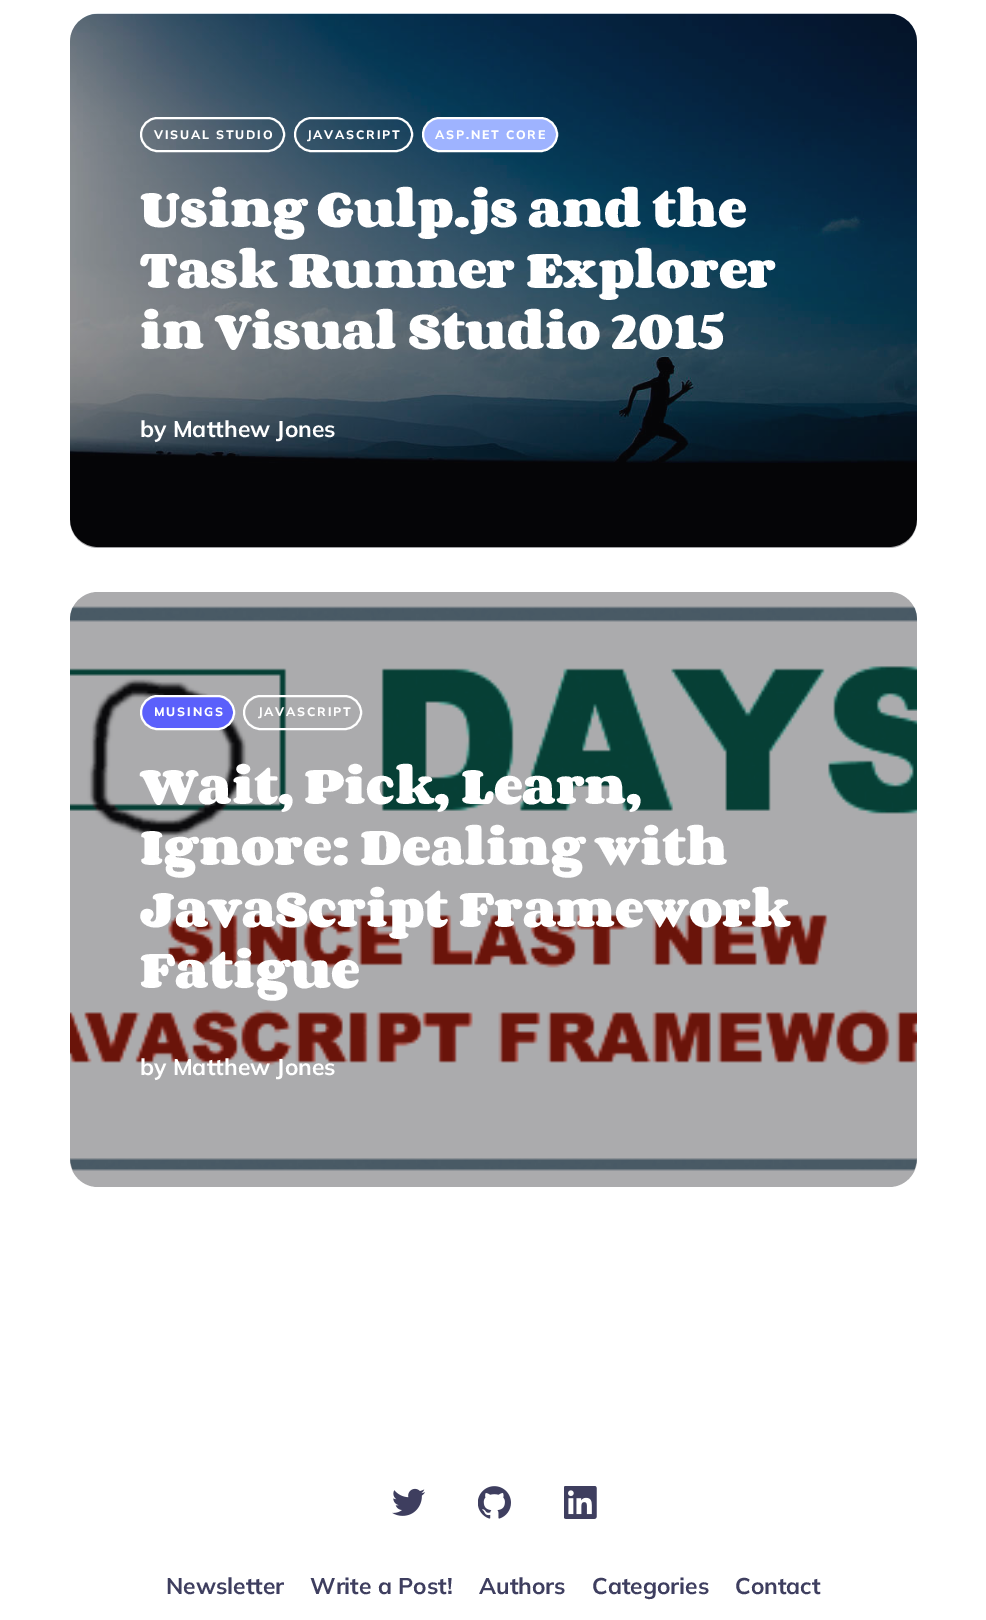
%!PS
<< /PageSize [986 1620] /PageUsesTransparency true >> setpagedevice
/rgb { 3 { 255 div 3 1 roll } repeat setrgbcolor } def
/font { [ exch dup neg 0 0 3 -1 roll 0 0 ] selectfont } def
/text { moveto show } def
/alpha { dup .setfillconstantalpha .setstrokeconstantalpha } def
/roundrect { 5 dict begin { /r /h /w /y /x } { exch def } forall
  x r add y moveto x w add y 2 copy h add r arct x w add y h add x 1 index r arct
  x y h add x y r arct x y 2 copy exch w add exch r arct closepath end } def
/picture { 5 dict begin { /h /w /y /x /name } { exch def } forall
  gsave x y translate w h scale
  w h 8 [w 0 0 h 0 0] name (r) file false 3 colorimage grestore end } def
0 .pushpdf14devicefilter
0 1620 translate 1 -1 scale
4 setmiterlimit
255 255 255 rgb
0 0 986 1620 rectfill
(img_01.rgb) 70 13 847 535 picture
0.35 alpha
15 15 20 rgb
70 14 847 534 28 roundrect fill
1 alpha
255 255 255 rgb
2 setlinewidth
141 118 143 33 16.5 roundrect stroke
295 118 117 33 16.5 roundrect stroke
158 179 255 rgb
423 118 134 33 16.5 roundrect gsave fill grestore
255 255 255 rgb
stroke
(img_02.rgb) 70 606 847 565 picture
0.35 alpha
15 15 20 rgb
70 592 847 595 28 roundrect fill
1 alpha
91 96 251 rgb
141 696 93 33 16.5 roundrect gsave fill grestore
255 255 255 rgb
stroke
244 696 117 33 16.5 roundrect stroke
(img_03.rgb) 392 1488 33 28 picture
(img_04.rgb) 478 1486 33 33 picture
(img_05.rgb) 564 1486 33 33 picture
/Mulish-ExtraBold 12.25 font
154 139 moveto 1.75 0 (VISUAL STUDIO) ashow
307 139 moveto 1.75 0 (JAVASCRIPT) ashow
435 139 moveto 1.75 0 (ASP.NET CORE) ashow
/Corben-Bold 43.75 font
(Using Gulp.js and the) 140 227 text
(Task Runner Explorer) 140 288 text
(in Visual Studio 2015) 140 349 text
/Mulish-Bold 22.75 font
(by Matthew Jones) 140 437 text
/Mulish-ExtraBold 12.25 font
154 716 moveto 1.75 0 (MUSINGS) ashow
258 716 moveto 1.75 0 (JAVASCRIPT) ashow
/Corben-Bold 43.75 font
(Wait, Pick, Learn,) 140 804 text
(Ignore: Dealing with) 140 865 text
(JavaScript Framework) 140 927 text
(Fatigue) 140 988 text
/Mulish-Bold 22.75 font
(by Matthew Jones) 140 1075 text
62 62 95 rgb
(Newsletter) 166 1594 text
(Write a Post!) 310 1594 text
(Authors) 479 1594 text
(Categories) 592 1594 text
(Contact) 735 1594 text
.poppdf14devicefilter showpage
